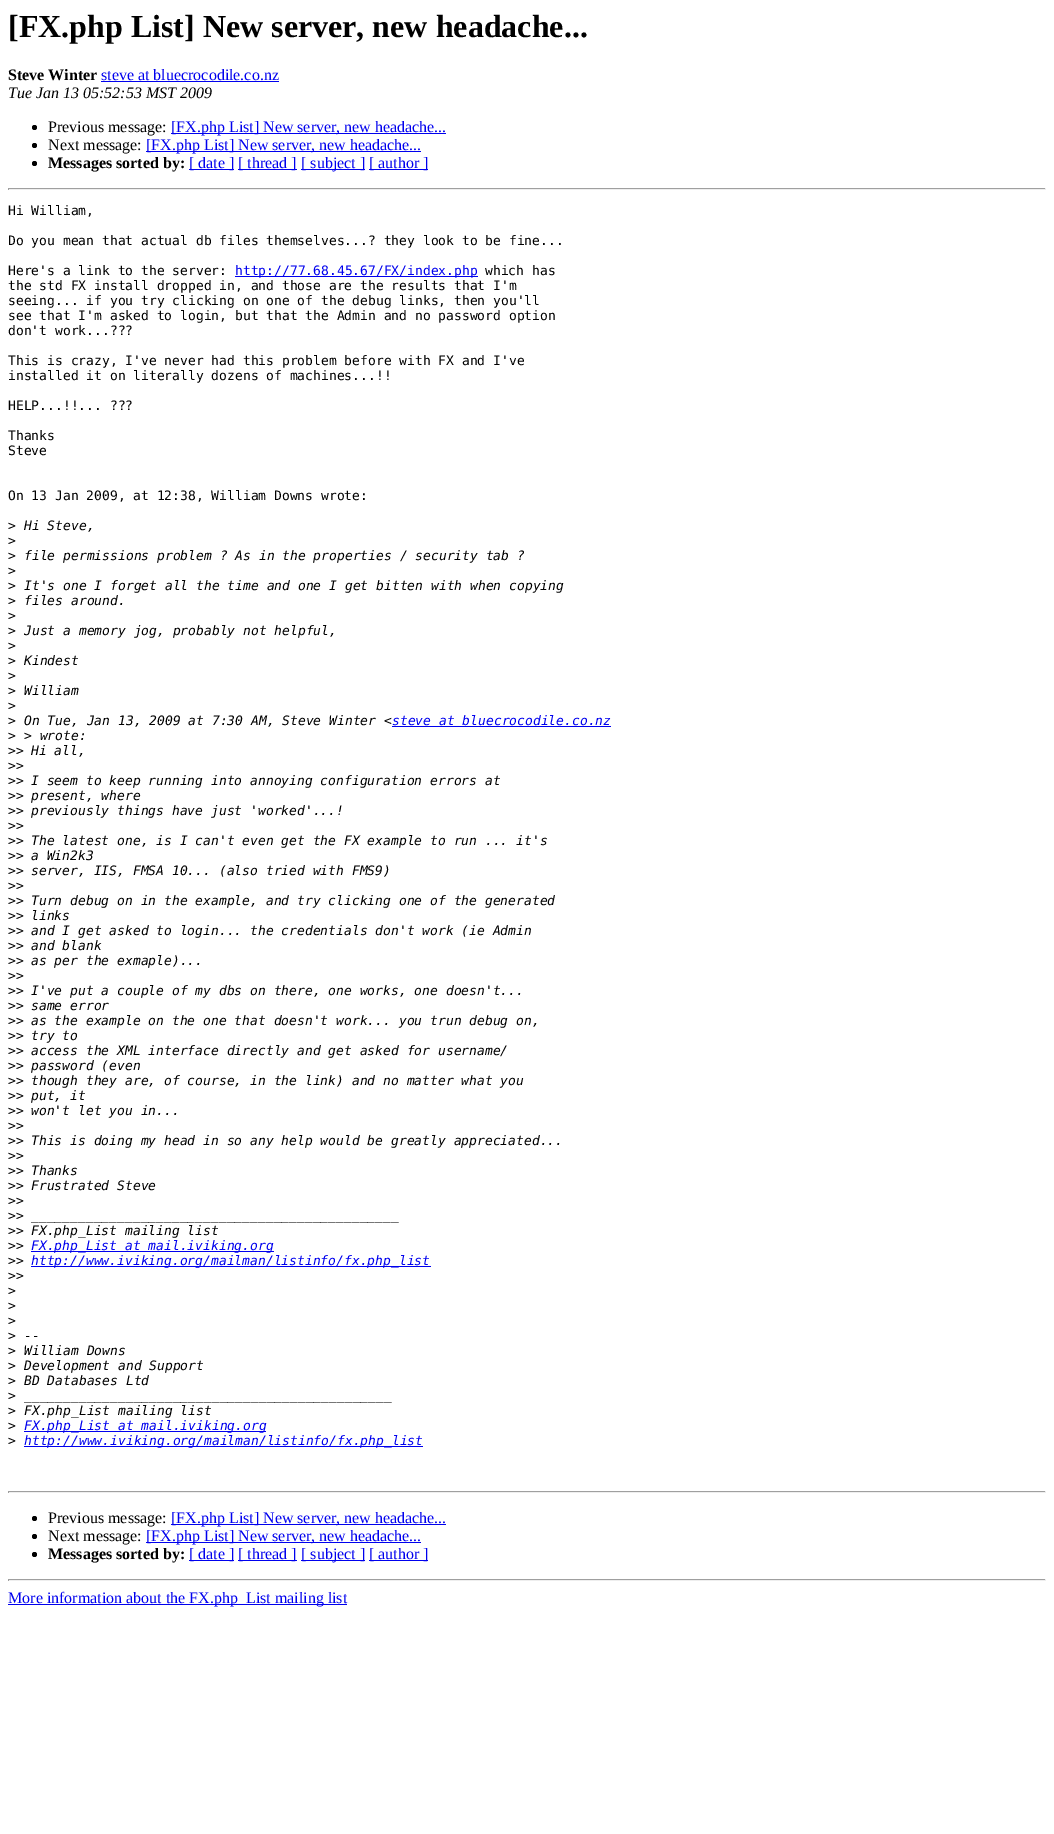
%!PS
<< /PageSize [1054 1834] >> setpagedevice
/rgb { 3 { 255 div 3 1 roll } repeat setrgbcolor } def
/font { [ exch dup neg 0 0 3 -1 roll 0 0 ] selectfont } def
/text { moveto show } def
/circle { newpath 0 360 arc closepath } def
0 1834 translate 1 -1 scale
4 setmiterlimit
255 255 255 rgb
0 0 1054 1834 rectfill
0 0 238 rgb
101 81 178 1 rectfill
0 0 0 rgb
34.5 127.5 2.5 circle fill
0 0 238 rgb
171 133 275 1 rectfill
0 0 0 rgb
34.5 145.5 2.5 circle fill
0 0 238 rgb
146 151 275 1 rectfill
0 0 0 rgb
34.5 163.5 2.5 circle fill
0 0 238 rgb
189 169 45 1 rectfill
238 169 59 1 rectfill
301 169 64 1 rectfill
369 169 59 1 rectfill
159 159 159 rgb
8 188 1038 1 rectfill
238 238 238 rgb
1045 188 1 2 rectfill
8 189 1038 1 rectfill
159 159 159 rgb
8 188 1 2 rectfill
0 0 238 rgb
235 276 243 1 rectfill
392 726 219 1 rectfill
31 1251 243 1 rectfill
31 1266 400 1 rectfill
24 1431 242 1 rectfill
24 1446 399 1 rectfill
159 159 159 rgb
8 1491 1038 1 rectfill
238 238 238 rgb
1045 1491 1 2 rectfill
8 1492 1038 1 rectfill
159 159 159 rgb
8 1491 1 2 rectfill
0 0 0 rgb
34.5 1518.5 2.5 circle fill
0 0 238 rgb
171 1524 275 1 rectfill
0 0 0 rgb
34.5 1536.5 2.5 circle fill
0 0 238 rgb
146 1542 275 1 rectfill
0 0 0 rgb
34.5 1554.5 2.5 circle fill
0 0 238 rgb
189 1560 45 1 rectfill
238 1560 59 1 rectfill
301 1560 64 1 rectfill
369 1560 59 1 rectfill
159 159 159 rgb
8 1579 1038 1 rectfill
238 238 238 rgb
1045 1579 1 2 rectfill
8 1580 1038 1 rectfill
159 159 159 rgb
8 1579 1 2 rectfill
0 0 238 rgb
8 1604 339 1 rectfill
/LiberationSerif-Bold 32 font
0 0 0 rgb
([FX.php List] New server, new headache...) 8 37 text
/LiberationSerif-Bold 16 font
(Steve Winter) 8 80 text
/LiberationSerif-Regular 16 font
0 0 238 rgb
(steve at bluecrocodile.co.nz) 101 80 text
/LiberationSerif-Italic 16 font
0 0 0 rgb
(Tue Jan 13 05:52:53 MST 2009) 8 98 text
/LiberationSerif-Regular 16 font
(Previous message:) 48 132 text
0 0 238 rgb
([FX.php List] New server, new headache...) 171 132 text
0 0 0 rgb
(Next message:) 48 150 text
0 0 238 rgb
([FX.php List] New server, new headache...) 146 150 text
/LiberationSerif-Bold 16 font
0 0 0 rgb
(Messages sorted by:) 48 168 text
/LiberationSerif-Regular 16 font
0 0 238 rgb
([ date ]) 189 168 text
([ thread ]) 238 168 text
([ subject ]) 301 168 text
([ author ]) 369 168 text
/DejaVuSansMono-Regular 13 font
0 0 0 rgb
(Hi William,) 8 215 text
(Do you mean that actual db files themselves...? they look to be fine...) 8 245 text
(Here's a link to the server:) 8 275 text
0 0 238 rgb
(http://77.68.45.67/FX/index.php) 235 275 text
0 0 0 rgb
(which has) 485 275 text
(the std FX install dropped in, and those are the results that I'm) 8 290 text
(seeing... if you try clicking on one of the debug links, then you'll) 8 305 text
(see that I'm asked to login, but that the Admin and no password option) 8 320 text
(don't work...???) 8 335 text
(This is crazy, I've never had this problem before with FX and I've) 8 365 text
(installed it on literally dozens of machines...!!) 8 380 text
(HELP...!!... ???) 8 410 text
(Thanks) 8 440 text
(Steve) 8 455 text
(On 13 Jan 2009, at 12:38, William Downs wrote:) 8 500 text
(>) 8 530 text
/DejaVuSansMono-Italic 13 font
(Hi Steve,) 24 530 text
/DejaVuSansMono-Regular 13 font
(>) 8 545 text
(>) 8 560 text
/DejaVuSansMono-Italic 13 font
(file permissions problem ? As in the properties / security tab ?) 24 560 text
/DejaVuSansMono-Regular 13 font
(>) 8 575 text
(>) 8 590 text
/DejaVuSansMono-Italic 13 font
(It's one I forget all the time and one I get bitten with when copying) 24 590 text
/DejaVuSansMono-Regular 13 font
(>) 8 605 text
/DejaVuSansMono-Italic 13 font
(files around.) 24 605 text
/DejaVuSansMono-Regular 13 font
(>) 8 620 text
(>) 8 635 text
/DejaVuSansMono-Italic 13 font
(Just a memory jog, probably not helpful,) 24 635 text
/DejaVuSansMono-Regular 13 font
(>) 8 650 text
(>) 8 665 text
/DejaVuSansMono-Italic 13 font
(Kindest) 24 665 text
/DejaVuSansMono-Regular 13 font
(>) 8 680 text
(>) 8 695 text
/DejaVuSansMono-Italic 13 font
(William) 24 695 text
/DejaVuSansMono-Regular 13 font
(>) 8 710 text
(>) 8 725 text
/DejaVuSansMono-Italic 13 font
(On Tue, Jan 13, 2009 at 7:30 AM, Steve Winter <) 24 725 text
0 0 238 rgb
(steve at bluecrocodile.co.nz) 392 725 text
/DejaVuSansMono-Regular 13 font
0 0 0 rgb
(>) 8 740 text
/DejaVuSansMono-Italic 13 font
(> wrote:) 24 740 text
/DejaVuSansMono-Regular 13 font
(>>) 8 755 text
/DejaVuSansMono-Italic 13 font
(Hi all,) 31 755 text
/DejaVuSansMono-Regular 13 font
(>>) 8 770 text
(>>) 8 785 text
/DejaVuSansMono-Italic 13 font
(I seem to keep running into annoying configuration errors at) 31 785 text
/DejaVuSansMono-Regular 13 font
(>>) 8 800 text
/DejaVuSansMono-Italic 13 font
(present, where) 31 800 text
/DejaVuSansMono-Regular 13 font
(>>) 8 815 text
/DejaVuSansMono-Italic 13 font
(previously things have just 'worked'...!) 31 815 text
/DejaVuSansMono-Regular 13 font
(>>) 8 830 text
(>>) 8 845 text
/DejaVuSansMono-Italic 13 font
(The latest one, is I can't even get the FX example to run ... it's) 31 845 text
/DejaVuSansMono-Regular 13 font
(>>) 8 860 text
/DejaVuSansMono-Italic 13 font
(a Win2k3) 31 860 text
/DejaVuSansMono-Regular 13 font
(>>) 8 875 text
/DejaVuSansMono-Italic 13 font
(server, IIS, FMSA 10... \(also tried with FMS9\)) 31 875 text
/DejaVuSansMono-Regular 13 font
(>>) 8 890 text
(>>) 8 905 text
/DejaVuSansMono-Italic 13 font
(Turn debug on in the example, and try clicking one of the generated) 31 905 text
/DejaVuSansMono-Regular 13 font
(>>) 8 920 text
/DejaVuSansMono-Italic 13 font
(links) 31 920 text
/DejaVuSansMono-Regular 13 font
(>>) 8 935 text
/DejaVuSansMono-Italic 13 font
(and I get asked to login... the credentials don't work \(ie Admin) 31 935 text
/DejaVuSansMono-Regular 13 font
(>>) 8 950 text
/DejaVuSansMono-Italic 13 font
(and blank) 31 950 text
/DejaVuSansMono-Regular 13 font
(>>) 8 965 text
/DejaVuSansMono-Italic 13 font
(as per the exmaple\)...) 31 965 text
/DejaVuSansMono-Regular 13 font
(>>) 8 980 text
(>>) 8 995 text
/DejaVuSansMono-Italic 13 font
(I've put a couple of my dbs on there, one works, one doesn't...) 31 995 text
/DejaVuSansMono-Regular 13 font
(>>) 8 1010 text
/DejaVuSansMono-Italic 13 font
(same error) 31 1010 text
/DejaVuSansMono-Regular 13 font
(>>) 8 1025 text
/DejaVuSansMono-Italic 13 font
(as the example on the one that doesn't work... you trun debug on,) 31 1025 text
/DejaVuSansMono-Regular 13 font
(>>) 8 1040 text
/DejaVuSansMono-Italic 13 font
(try to) 31 1040 text
/DejaVuSansMono-Regular 13 font
(>>) 8 1055 text
/DejaVuSansMono-Italic 13 font
(access the XML interface directly and get asked for username/) 31 1055 text
/DejaVuSansMono-Regular 13 font
(>>) 8 1070 text
/DejaVuSansMono-Italic 13 font
(password \(even) 31 1070 text
/DejaVuSansMono-Regular 13 font
(>>) 8 1085 text
/DejaVuSansMono-Italic 13 font
(though they are, of course, in the link\) and no matter what you) 31 1085 text
/DejaVuSansMono-Regular 13 font
(>>) 8 1100 text
/DejaVuSansMono-Italic 13 font
(put, it) 31 1100 text
/DejaVuSansMono-Regular 13 font
(>>) 8 1115 text
/DejaVuSansMono-Italic 13 font
(won't let you in...) 31 1115 text
/DejaVuSansMono-Regular 13 font
(>>) 8 1130 text
(>>) 8 1145 text
/DejaVuSansMono-Italic 13 font
(This is doing my head in so any help would be greatly appreciated...) 31 1145 text
/DejaVuSansMono-Regular 13 font
(>>) 8 1160 text
(>>) 8 1175 text
/DejaVuSansMono-Italic 13 font
(Thanks) 31 1175 text
/DejaVuSansMono-Regular 13 font
(>>) 8 1190 text
/DejaVuSansMono-Italic 13 font
(Frustrated Steve) 31 1190 text
/DejaVuSansMono-Regular 13 font
(>>) 8 1205 text
(>>) 8 1220 text
/DejaVuSansMono-Italic 13 font
(_______________________________________________) 31 1220 text
/DejaVuSansMono-Regular 13 font
(>>) 8 1235 text
/DejaVuSansMono-Italic 13 font
(FX.php_List mailing list) 31 1235 text
/DejaVuSansMono-Regular 13 font
(>>) 8 1250 text
/DejaVuSansMono-Italic 13 font
0 0 238 rgb
(FX.php_List at mail.iviking.org) 31 1250 text
/DejaVuSansMono-Regular 13 font
0 0 0 rgb
(>>) 8 1265 text
/DejaVuSansMono-Italic 13 font
0 0 238 rgb
(http://www.iviking.org/mailman/listinfo/fx.php_list) 31 1265 text
/DejaVuSansMono-Regular 13 font
0 0 0 rgb
(>>) 8 1280 text
(>) 8 1295 text
(>) 8 1310 text
(>) 8 1325 text
(>) 8 1340 text
/DejaVuSansMono-Italic 13 font
(--) 24 1340 text
/DejaVuSansMono-Regular 13 font
(>) 8 1355 text
/DejaVuSansMono-Italic 13 font
(William Downs) 24 1355 text
/DejaVuSansMono-Regular 13 font
(>) 8 1370 text
/DejaVuSansMono-Italic 13 font
(Development and Support) 24 1370 text
/DejaVuSansMono-Regular 13 font
(>) 8 1385 text
/DejaVuSansMono-Italic 13 font
(BD Databases Ltd) 24 1385 text
/DejaVuSansMono-Regular 13 font
(>) 8 1400 text
/DejaVuSansMono-Italic 13 font
(_______________________________________________) 24 1400 text
/DejaVuSansMono-Regular 13 font
(>) 8 1415 text
/DejaVuSansMono-Italic 13 font
(FX.php_List mailing list) 24 1415 text
/DejaVuSansMono-Regular 13 font
(>) 8 1430 text
/DejaVuSansMono-Italic 13 font
0 0 238 rgb
(FX.php_List at mail.iviking.org) 24 1430 text
/DejaVuSansMono-Regular 13 font
0 0 0 rgb
(>) 8 1445 text
/DejaVuSansMono-Italic 13 font
0 0 238 rgb
(http://www.iviking.org/mailman/listinfo/fx.php_list) 24 1445 text
/LiberationSerif-Regular 16 font
0 0 0 rgb
(Previous message:) 48 1523 text
0 0 238 rgb
([FX.php List] New server, new headache...) 171 1523 text
0 0 0 rgb
(Next message:) 48 1541 text
0 0 238 rgb
([FX.php List] New server, new headache...) 146 1541 text
/LiberationSerif-Bold 16 font
0 0 0 rgb
(Messages sorted by:) 48 1559 text
/LiberationSerif-Regular 16 font
0 0 238 rgb
([ date ]) 189 1559 text
([ thread ]) 238 1559 text
([ subject ]) 301 1559 text
([ author ]) 369 1559 text
(More information about the FX.php_List mailing list) 8 1603 text
showpage
